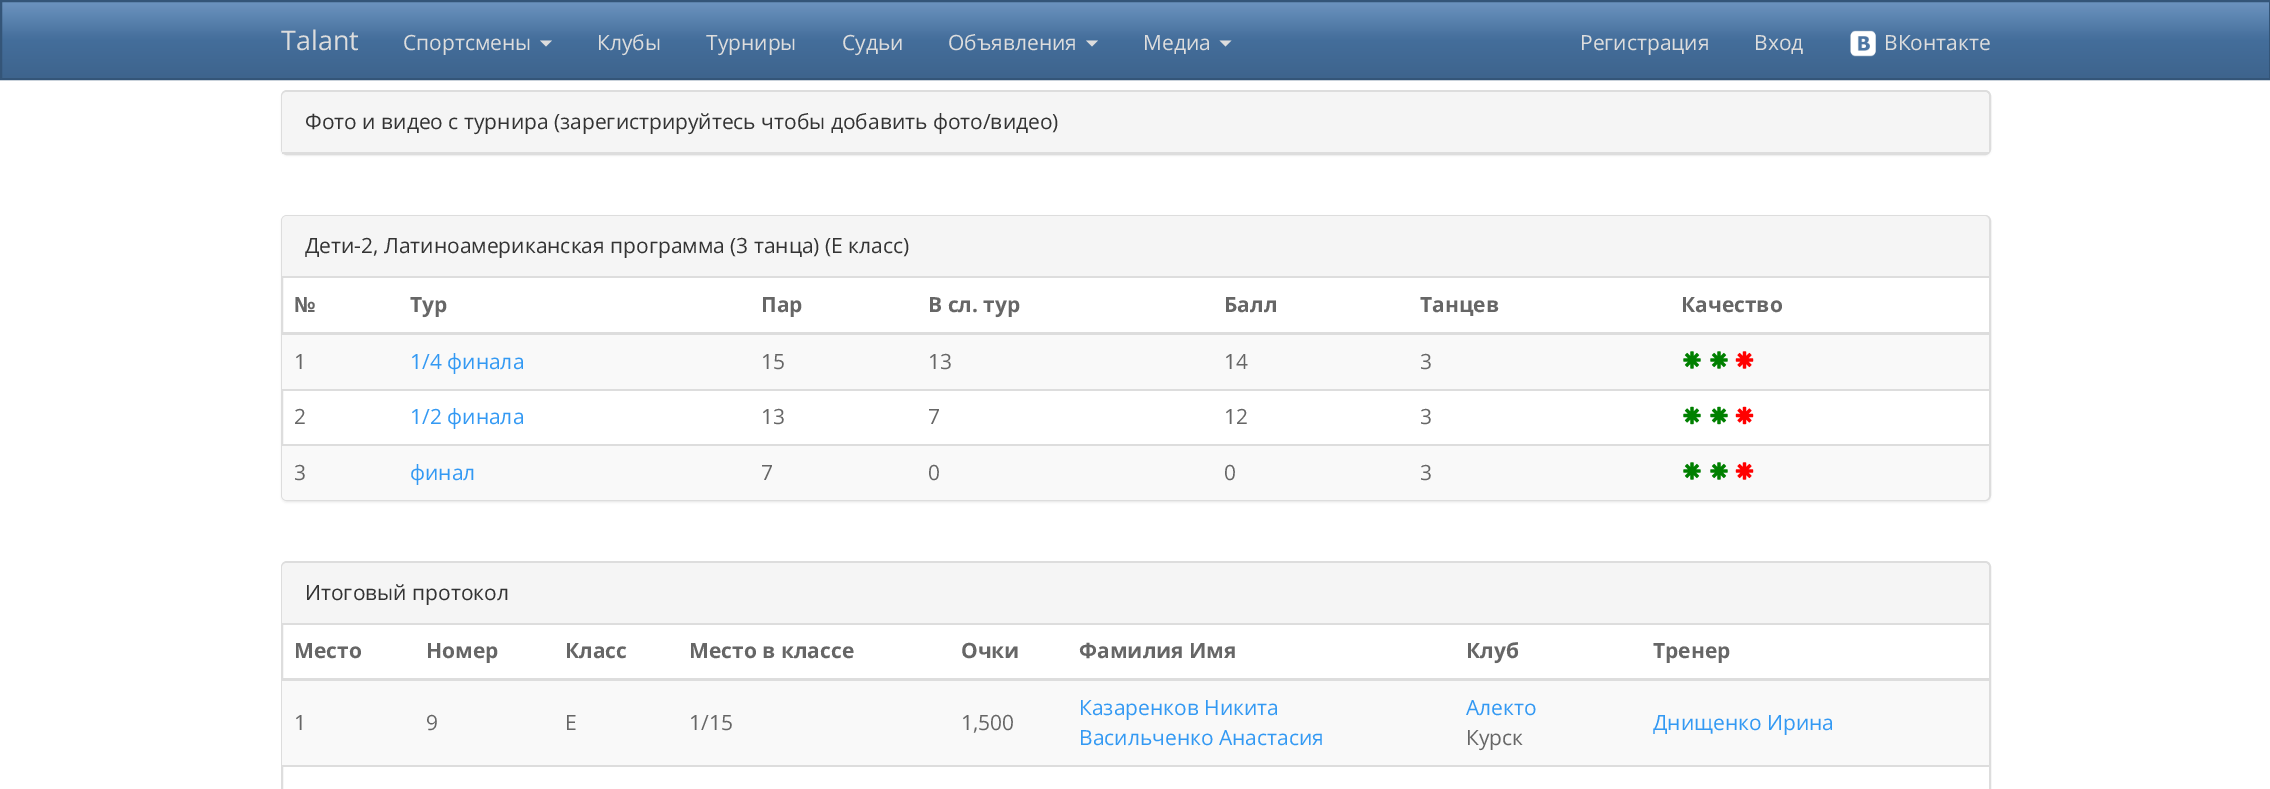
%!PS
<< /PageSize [2270 789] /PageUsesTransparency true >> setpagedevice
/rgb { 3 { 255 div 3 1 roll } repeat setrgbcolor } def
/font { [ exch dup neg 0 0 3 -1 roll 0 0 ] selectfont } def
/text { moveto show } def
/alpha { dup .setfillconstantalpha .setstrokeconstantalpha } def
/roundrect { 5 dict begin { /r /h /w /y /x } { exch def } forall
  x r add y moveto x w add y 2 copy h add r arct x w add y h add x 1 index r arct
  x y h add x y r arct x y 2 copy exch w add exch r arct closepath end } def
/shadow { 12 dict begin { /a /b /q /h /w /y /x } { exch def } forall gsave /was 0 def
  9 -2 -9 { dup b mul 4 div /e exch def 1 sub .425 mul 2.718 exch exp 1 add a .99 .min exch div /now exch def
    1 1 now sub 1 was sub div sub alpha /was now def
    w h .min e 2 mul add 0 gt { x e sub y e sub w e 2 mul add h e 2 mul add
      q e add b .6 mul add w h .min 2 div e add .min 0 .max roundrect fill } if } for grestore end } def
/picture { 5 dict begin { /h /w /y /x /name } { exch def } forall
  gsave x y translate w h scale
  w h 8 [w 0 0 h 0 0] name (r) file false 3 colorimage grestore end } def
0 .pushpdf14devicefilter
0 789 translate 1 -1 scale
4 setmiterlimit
255 255 255 rgb
0 0 2270 789 rectfill
gsave 2 2 moveto 2267 0 rlineto 0 76 rlineto -2267 0 rlineto closepath clip newpath
<< /ShadingType 2 /ColorSpace /DeviceRGB /Coords [1136 1.5 1136 78] /Extend [true true] /Function << /FunctionType 3 /Domain [0 1] /Functions [<< /FunctionType 2 /Domain [0 1] /C0 [0.427 0.58 0.749] /C1 [0.267 0.431 0.608] /N 1 >> << /FunctionType 2 /Domain [0 1] /C0 [0.267 0.431 0.608] /C1 [0.243 0.392 0.553] /N 1 >>] /Bounds [0.5] /Encode [0 1 0 1] >> >> shfill grestore
52 85 120 rgb
2 setlinewidth
1 1 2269 78 rectstroke
221 221 221 rgb
540 40.5 moveto 12 0 rlineto -6 6 rlineto closepath fill
1086 40.5 moveto 12 0 rlineto -6 6 rlineto closepath fill
1219.5 40.5 moveto 12 0 rlineto -6 6 rlineto closepath fill
(img_01.rgb) 1850 30 26 27 picture
0 0 0 rgb
281 92 1710 64 6 1 0.05 shadow
255 255 255 rgb
282 91 1708 63 5 roundrect gsave fill grestore
221 221 221 rgb
stroke
245 245 245 rgb
287 92 moveto 1697 0 rlineto 3 0 5 2 5 5 rcurveto 0 56 rlineto -1707 0 rlineto 0 -56 rlineto 0 -3 2 -5 5 -5 rcurveto closepath fill
221 221 221 rgb
282 152 1707 2 rectfill
0 0 0 rgb
281 216 1710 287 6 1 0.05 shadow
255 255 255 rgb
282 216 1708 284 5 roundrect gsave fill grestore
221 221 221 rgb
stroke
245 245 245 rgb
287 216 moveto 1697 0 rlineto 3 0 5 2 5 5 rcurveto 0 57 rlineto -1707 0 rlineto 0 -57 rlineto 0 -3 2 -5 5 -5 rcurveto closepath fill
221 221 221 rgb
282 276 1707 2 rectfill
281 332 1710 3 rectfill
249 249 249 rgb
282 335 1707 54 rectfill
(img_02.rgb) 1683 351 18 18 picture
(img_02.rgb) 1710 351 18 18 picture
(img_03.rgb) 1735 351 19 18 picture
221 221 221 rgb
282 389 1709 2 rectfill
(img_04.rgb) 1683 406 18 19 picture
(img_04.rgb) 1710 406 18 19 picture
(img_05.rgb) 1735 406 19 19 picture
249 249 249 rgb
282 444 moveto 1707 0 rlineto 0 51 rlineto 0 3 -2 5 -5 5 rcurveto -1697 0 rlineto -3 0 -5 -2 -5 -5 rcurveto closepath fill
221 221 221 rgb
282 444 1709 2 rectfill
(img_02.rgb) 1683 462 18 18 picture
(img_02.rgb) 1710 462 18 18 picture
(img_03.rgb) 1735 462 19 18 picture
282 562 1708 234 5 roundrect stroke
245 245 245 rgb
287 563 moveto 1697 0 rlineto 3 0 5 2 5 5 rcurveto 0 56 rlineto -1707 0 rlineto 0 -56 rlineto 0 -3 2 -5 5 -5 rcurveto closepath fill
221 221 221 rgb
282 623 1707 2 rectfill
281 678 1710 3 rectfill
249 249 249 rgb
282 681 1707 84 rectfill
221 221 221 rgb
282 765 1709 2 rectfill
/OpenSans-Regular 27 font
(Talant) 281 50 text
/OpenSans-Regular 21 font
(Спортсмены) 403 50 text
(Клубы) 597 50 text
(Турниры) 706 50 text
(Судьи) 842 50 text
(Объявления) 948 50 text
(Медиа) 1143 50 text
(Регистрация) 1580 50 text
(Вход) 1754 50 text
(ВКонтакте) 1884 50 text
51 51 51 rgb
(Фото и видео с турнира \(зарегистрируйтесь чтобы добавить фото/видео\)) 305 129 text
(Дети-2, Латиноамериканская программа \(3 танца\) \(E класс\)) 305 253 text
/OpenSans-Bold 21 font
102 102 102 rgb
(№) 294 312 text
(Тур) 410 312 text
(Пар) 761 312 text
(В сл. тур) 928 312 text
(Балл) 1224 312 text
(Танцев) 1420 312 text
(Качество) 1681 312 text
/OpenSans-Regular 21 font
(1) 294 369 text
51 153 243 rgb
(1/4 финала) 410 369 text
102 102 102 rgb
(15) 761 369 text
(13) 928 369 text
(14) 1224 369 text
(3) 1420 369 text
(2) 294 424 text
51 153 243 rgb
(1/2 финала) 410 424 text
102 102 102 rgb
(13) 761 424 text
(7) 928 424 text
(12) 1224 424 text
(3) 1420 424 text
(3) 294 480 text
51 153 243 rgb
(финал) 410 480 text
102 102 102 rgb
(7) 761 480 text
(0) 928 480 text
(0) 1224 480 text
(3) 1420 480 text
51 51 51 rgb
(Итоговый протокол) 305 600 text
/OpenSans-Bold 21 font
102 102 102 rgb
(Место) 294 658 text
(Номер) 426 658 text
(Класс) 565 658 text
(Место в классе) 689 658 text
(Очки) 961 658 text
(Фамилия Имя) 1079 658 text
(Клуб) 1466 658 text
(Тренер) 1653 658 text
/OpenSans-Regular 21 font
(1) 294 730 text
(9) 426 730 text
(E) 565 730 text
(1/15) 689 730 text
(1,500) 961 730 text
51 153 243 rgb
(Казаренков Никита) 1079 715 text
(Васильченко Анастасия) 1079 745 text
(Алекто) 1466 715 text
102 102 102 rgb
(Курск) 1466 745 text
51 153 243 rgb
(Днищенко Ирина) 1653 730 text
.poppdf14devicefilter showpage
